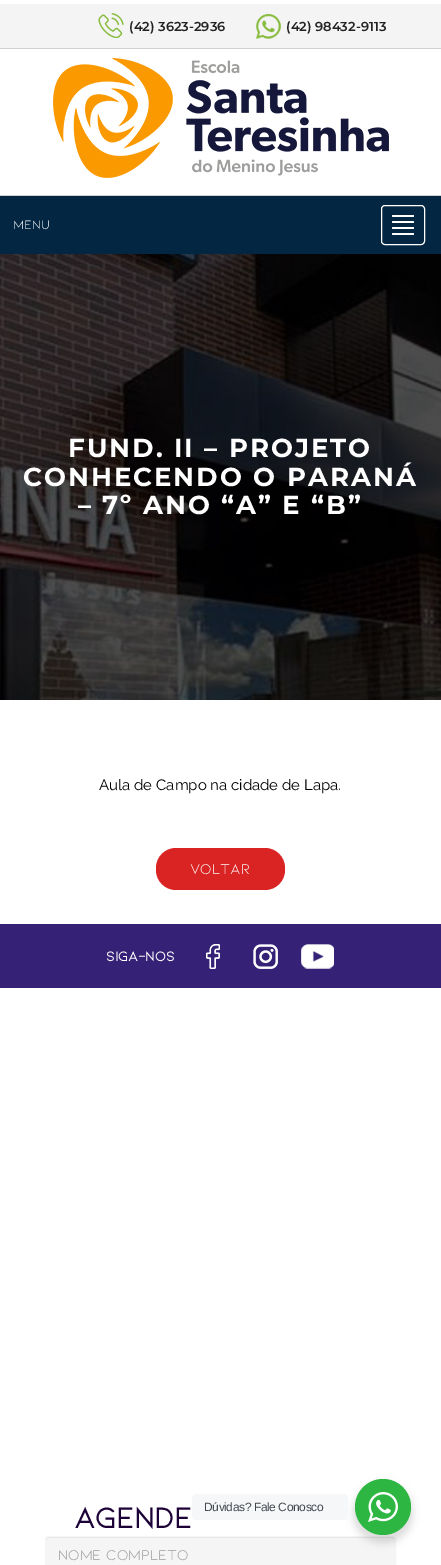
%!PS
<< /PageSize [441 1565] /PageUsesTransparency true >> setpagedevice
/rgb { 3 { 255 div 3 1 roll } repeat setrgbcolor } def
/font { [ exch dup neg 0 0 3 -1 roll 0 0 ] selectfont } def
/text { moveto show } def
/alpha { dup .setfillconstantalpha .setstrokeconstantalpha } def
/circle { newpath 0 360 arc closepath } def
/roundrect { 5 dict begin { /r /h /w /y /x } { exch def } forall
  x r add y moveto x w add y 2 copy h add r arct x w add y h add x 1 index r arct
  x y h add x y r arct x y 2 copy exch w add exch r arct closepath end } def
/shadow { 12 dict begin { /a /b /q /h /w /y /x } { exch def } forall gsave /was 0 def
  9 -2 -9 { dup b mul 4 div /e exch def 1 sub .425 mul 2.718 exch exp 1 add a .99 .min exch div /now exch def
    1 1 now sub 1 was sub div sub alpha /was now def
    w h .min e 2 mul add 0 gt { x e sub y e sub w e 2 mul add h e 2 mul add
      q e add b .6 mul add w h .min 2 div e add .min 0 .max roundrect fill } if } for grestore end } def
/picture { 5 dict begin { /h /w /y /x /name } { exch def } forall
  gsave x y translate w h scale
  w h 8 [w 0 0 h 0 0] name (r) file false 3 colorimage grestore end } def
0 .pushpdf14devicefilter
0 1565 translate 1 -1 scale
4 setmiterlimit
255 255 255 rgb
0 0 441 1565 rectfill
244 244 244 rgb
0 4 441 44 rectfill
208 208 208 rgb
0 48 441 1 rectfill
(img_01.rgb) 98 13 26 25 picture
(img_02.rgb) 256 14 25 25 picture
(img_03.rgb) 53 58 336 120 picture
0 195 441 1 rectfill
3 39 66 rgb
0 196 441 58 rectfill
255 255 255 rgb
381.5 205.5 43 39 3.5 roundrect stroke
392 215 22 2 1 roundrect fill
392 221 22 2 1 roundrect fill
392 227 22 2 1 roundrect fill
392 233 22 2 1 roundrect fill
(img_04.rgb) 0 254 441 446 picture
218 36 36 rgb
156 848 129 42 20 roundrect fill
53 34 118 rgb
0 924 441 64 rectfill
(img_05.rgb) 206 944 14 25 picture
(img_06.rgb) 253 944 25 25 picture
(img_07.rgb) 301 944 33 25 picture
245 245 245 rgb
45 1536 351 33 4 roundrect fill
227 227 227 rgb
49 1538 moveto 343 0 rlineto 2 0 3 1 3 3 rcurveto 0 -2 -1 -4 -3 -4 rcurveto -343 0 rlineto -2 1 rlineto -1 3 rlineto 0 -2 1 -3 3 -3 rcurveto closepath fill
245 245 245 rgb
45.5 1536.5 350 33 3.5 roundrect stroke
0 0 0 rgb
353 1483 60 60 30 4 0.14 shadow
245 247 249 rgb
192 1494 156 26 4 roundrect fill
45 183 66 rgb
383 1507 28 circle fill
(img_08.rgb) 368 1492 30 30 picture
/Montserrat-SemiBold 13 font
34 34 34 rgb
(\(42\) 3623-2936) 129 31 text
(\(42\) 98432-9113) 286 31 text
/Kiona-Regular 13 font
255 255 255 rgb
(MENU) 13 229 text
/Montserrat-Bold 26 font
68 457 moveto 2 0 (FUND. II – PROJETO) ashow
23 486 moveto 2 0 (CONHECENDO O PARANÁ) ashow
78 514 moveto 2 0 (– 7º ANO “A” E “B”) ashow
/Raleway-Thin 15 font
0 0 0 rgb
(Aula de Campo na cidade de Lapa.) 99 790 text
/Kiona-Regular 15 font
255 255 255 rgb
(VOLTAR) 190 874 text
/Kiona-Bold 14 font
(SIGA-NOS) 106 961 text
/LiberationSans-Regular 12 font
67 71 78 rgb
204 1511 moveto -0.4 0 (Dúvidas? Fale Conosco) ashow
/Kiona-Bold 30 font
28 2 55 rgb
(AGENDE) 74 1528 text
/Kiona-Regular 15 font
153 153 153 rgb
(Nome Completo) 58 1560 text
.poppdf14devicefilter showpage
